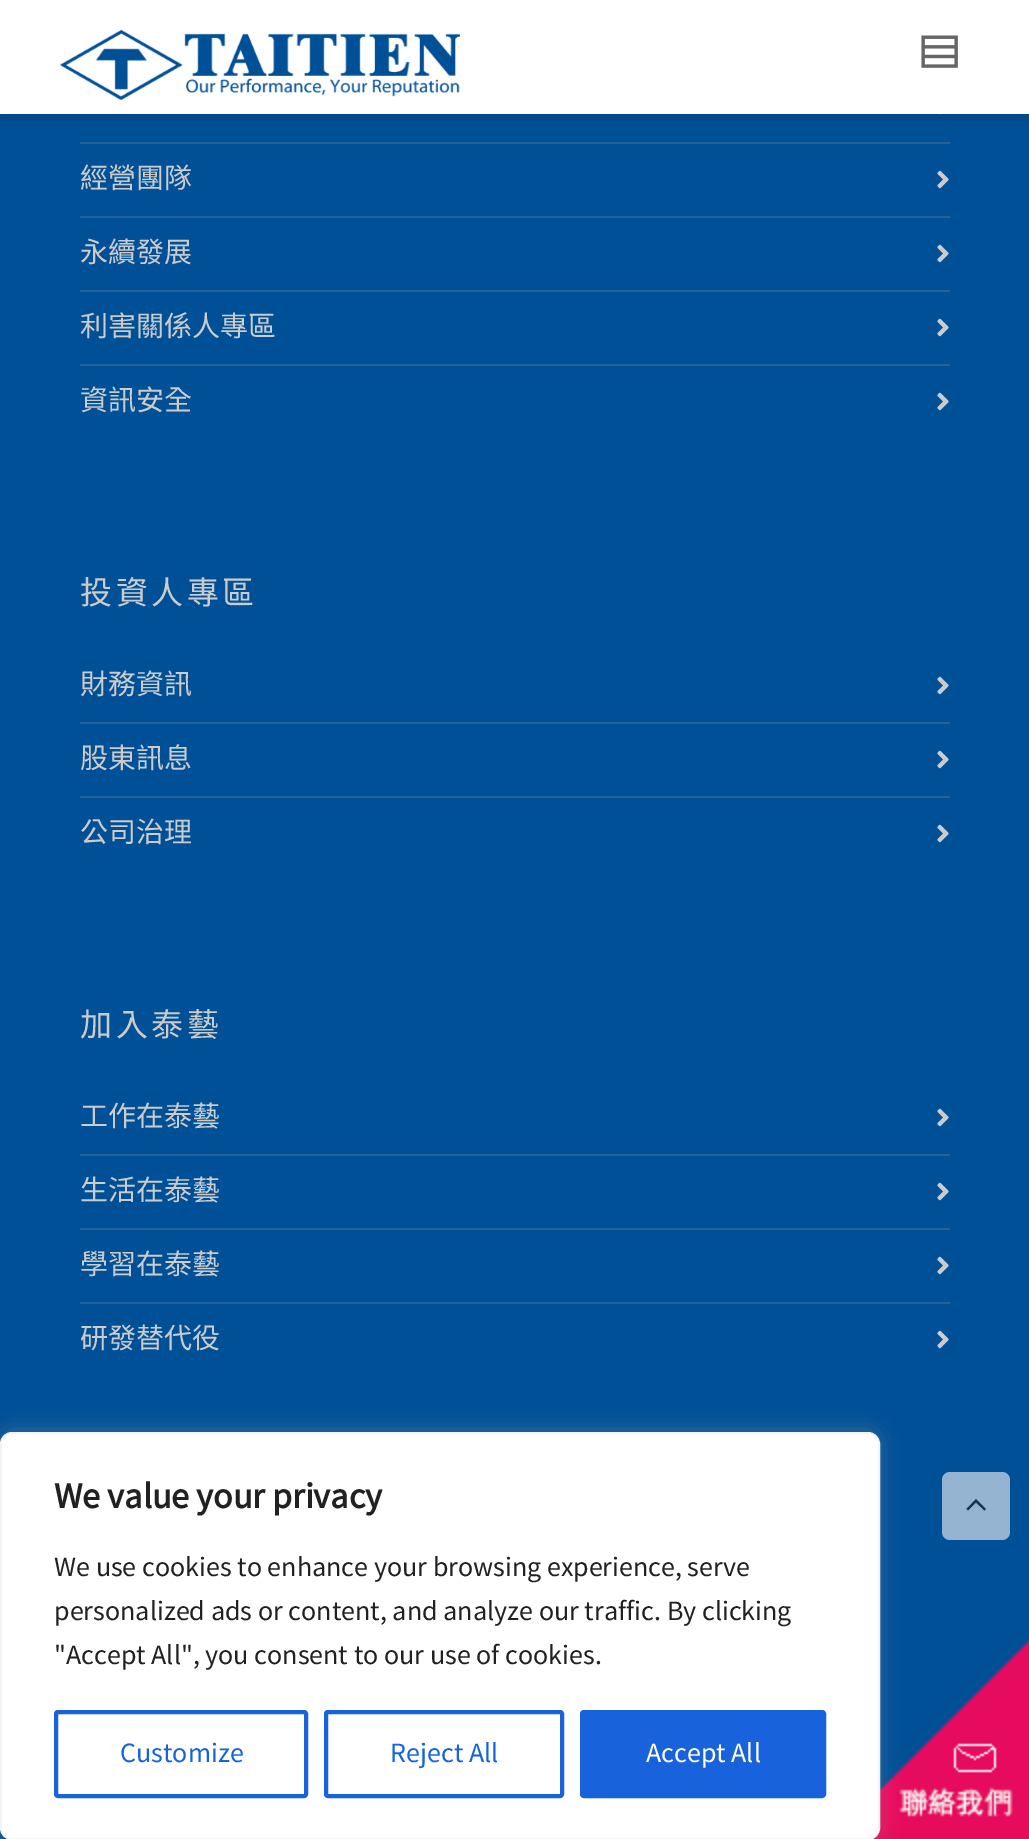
%!PS
<< /PageSize [1029 1839] /PageUsesTransparency true >> setpagedevice
/rgb { 3 { 255 div 3 1 roll } repeat setrgbcolor } def
/font { [ exch dup neg 0 0 3 -1 roll 0 0 ] selectfont } def
/text { moveto show } def
/alpha { dup .setfillconstantalpha .setstrokeconstantalpha } def
/roundrect { 5 dict begin { /r /h /w /y /x } { exch def } forall
  x r add y moveto x w add y 2 copy h add r arct x w add y h add x 1 index r arct
  x y h add x y r arct x y 2 copy exch w add exch r arct closepath end } def
/shadow { 12 dict begin { /a /b /q /h /w /y /x } { exch def } forall gsave /was 0 def
  9 -2 -9 { dup b mul 4 div /e exch def 1 sub .425 mul 2.718 exch exp 1 add a .99 .min exch div /now exch def
    1 1 now sub 1 was sub div sub alpha /was now def
    w h .min e 2 mul add 0 gt { x e sub y e sub w e 2 mul add h e 2 mul add
      q e add b .6 mul add w h .min 2 div e add .min 0 .max roundrect fill } if } for grestore end } def
/picture { 5 dict begin { /h /w /y /x /name } { exch def } forall
  gsave x y translate w h scale
  w h 8 [w 0 0 h 0 0] name (r) file false 3 colorimage grestore end } def
0 .pushpdf14devicefilter
0 1839 translate 1 -1 scale
4 setmiterlimit
0 80 151 rgb
0 0 1029 1839 rectfill
(img_03.rgb) 939 114 2 1 picture
0 0 0 rgb
0 6 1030 114 0 5 0.1 shadow
255 255 255 rgb
0 0 1029 114 rectfill
(img_01.rgb) 60 29 400 71 picture
(img_02.rgb) 921 35 37 33 picture
37 98 152 rgb
80 142 870 2 rectfill
(img_04.rgb) 937 170 12 19 picture
80 216 870 2 rectfill
(img_04.rgb) 937 244 12 19 picture
80 290 870 2 rectfill
(img_04.rgb) 937 318 12 19 picture
80 364 870 2 rectfill
(img_04.rgb) 937 392 12 19 picture
(img_04.rgb) 937 676 12 19 picture
80 722 870 2 rectfill
(img_04.rgb) 937 750 12 19 picture
80 796 870 2 rectfill
(img_04.rgb) 937 824 12 19 picture
(img_04.rgb) 937 1108 12 19 picture
80 1154 870 2 rectfill
(img_04.rgb) 937 1182 12 19 picture
80 1228 870 2 rectfill
(img_04.rgb) 937 1256 12 19 picture
80 1302 870 2 rectfill
(img_04.rgb) 937 1330 12 19 picture
(img_05.rgb) 872 1640 157 199 picture
172 171 171 rgb
0 1430 880 408 12 10 0.3 shadow
255 255 255 rgb
1 1433 878 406 11 roundrect gsave fill grestore
244 244 244 rgb
2 setlinewidth
stroke
24 99 220 rgb
4 setlinewidth
56 1712 250 84 2 roundrect stroke
326 1712 236 84 2 roundrect stroke
582 1712 242 84 2 roundrect gsave fill grestore
stroke
148 180 209 rgb
942 1472 68 68 8 roundrect fill
20 52 81 rgb
984.5 1510.5 moveto -8.5 -8 rlineto -8 8 rlineto -1.5 -1.5 rlineto 9.5 -10 rlineto 10 10 rlineto closepath fill
/NotoSansCJKTC-Regular 28 font
204 204 204 rgb
(經營團隊) 80 188 text
(永續發展) 80 262 text
(利害關係人專區) 80 336 text
(資訊安全) 80 410 text
/NotoSansCJKTC-Regular 32 font
80 604 moveto 3.5 0 (投資人專區) ashow
/NotoSansCJKTC-Regular 28 font
(財務資訊) 80 694 text
(股東訊息) 80 768 text
(公司治理) 80 842 text
/NotoSansCJKTC-Regular 32 font
80 1036 moveto 3.5 0 (加入泰藝) ashow
/NotoSansCJKTC-Regular 28 font
(工作在泰藝) 80 1126 text
(生活在泰藝) 80 1200 text
(學習在泰藝) 80 1274 text
(研發替代役) 80 1348 text
/SourceSansPro-Bold 36 font
33 33 33 rgb
(We value your privacy) 54 1508 text
/SourceSansPro-Regular 28 font
(We use cookies to enhance your browsing experience, serve) 54 1576 text
(personalized ads or content, and analyze our traffic. By clicking) 54 1620 text
("Accept All", you consent to our use of cookies.) 54 1664 text
24 99 220 rgb
(Customize) 120 1762 text
(Reject All) 390 1762 text
255 255 255 rgb
(Accept All) 646 1762 text
.poppdf14devicefilter showpage
